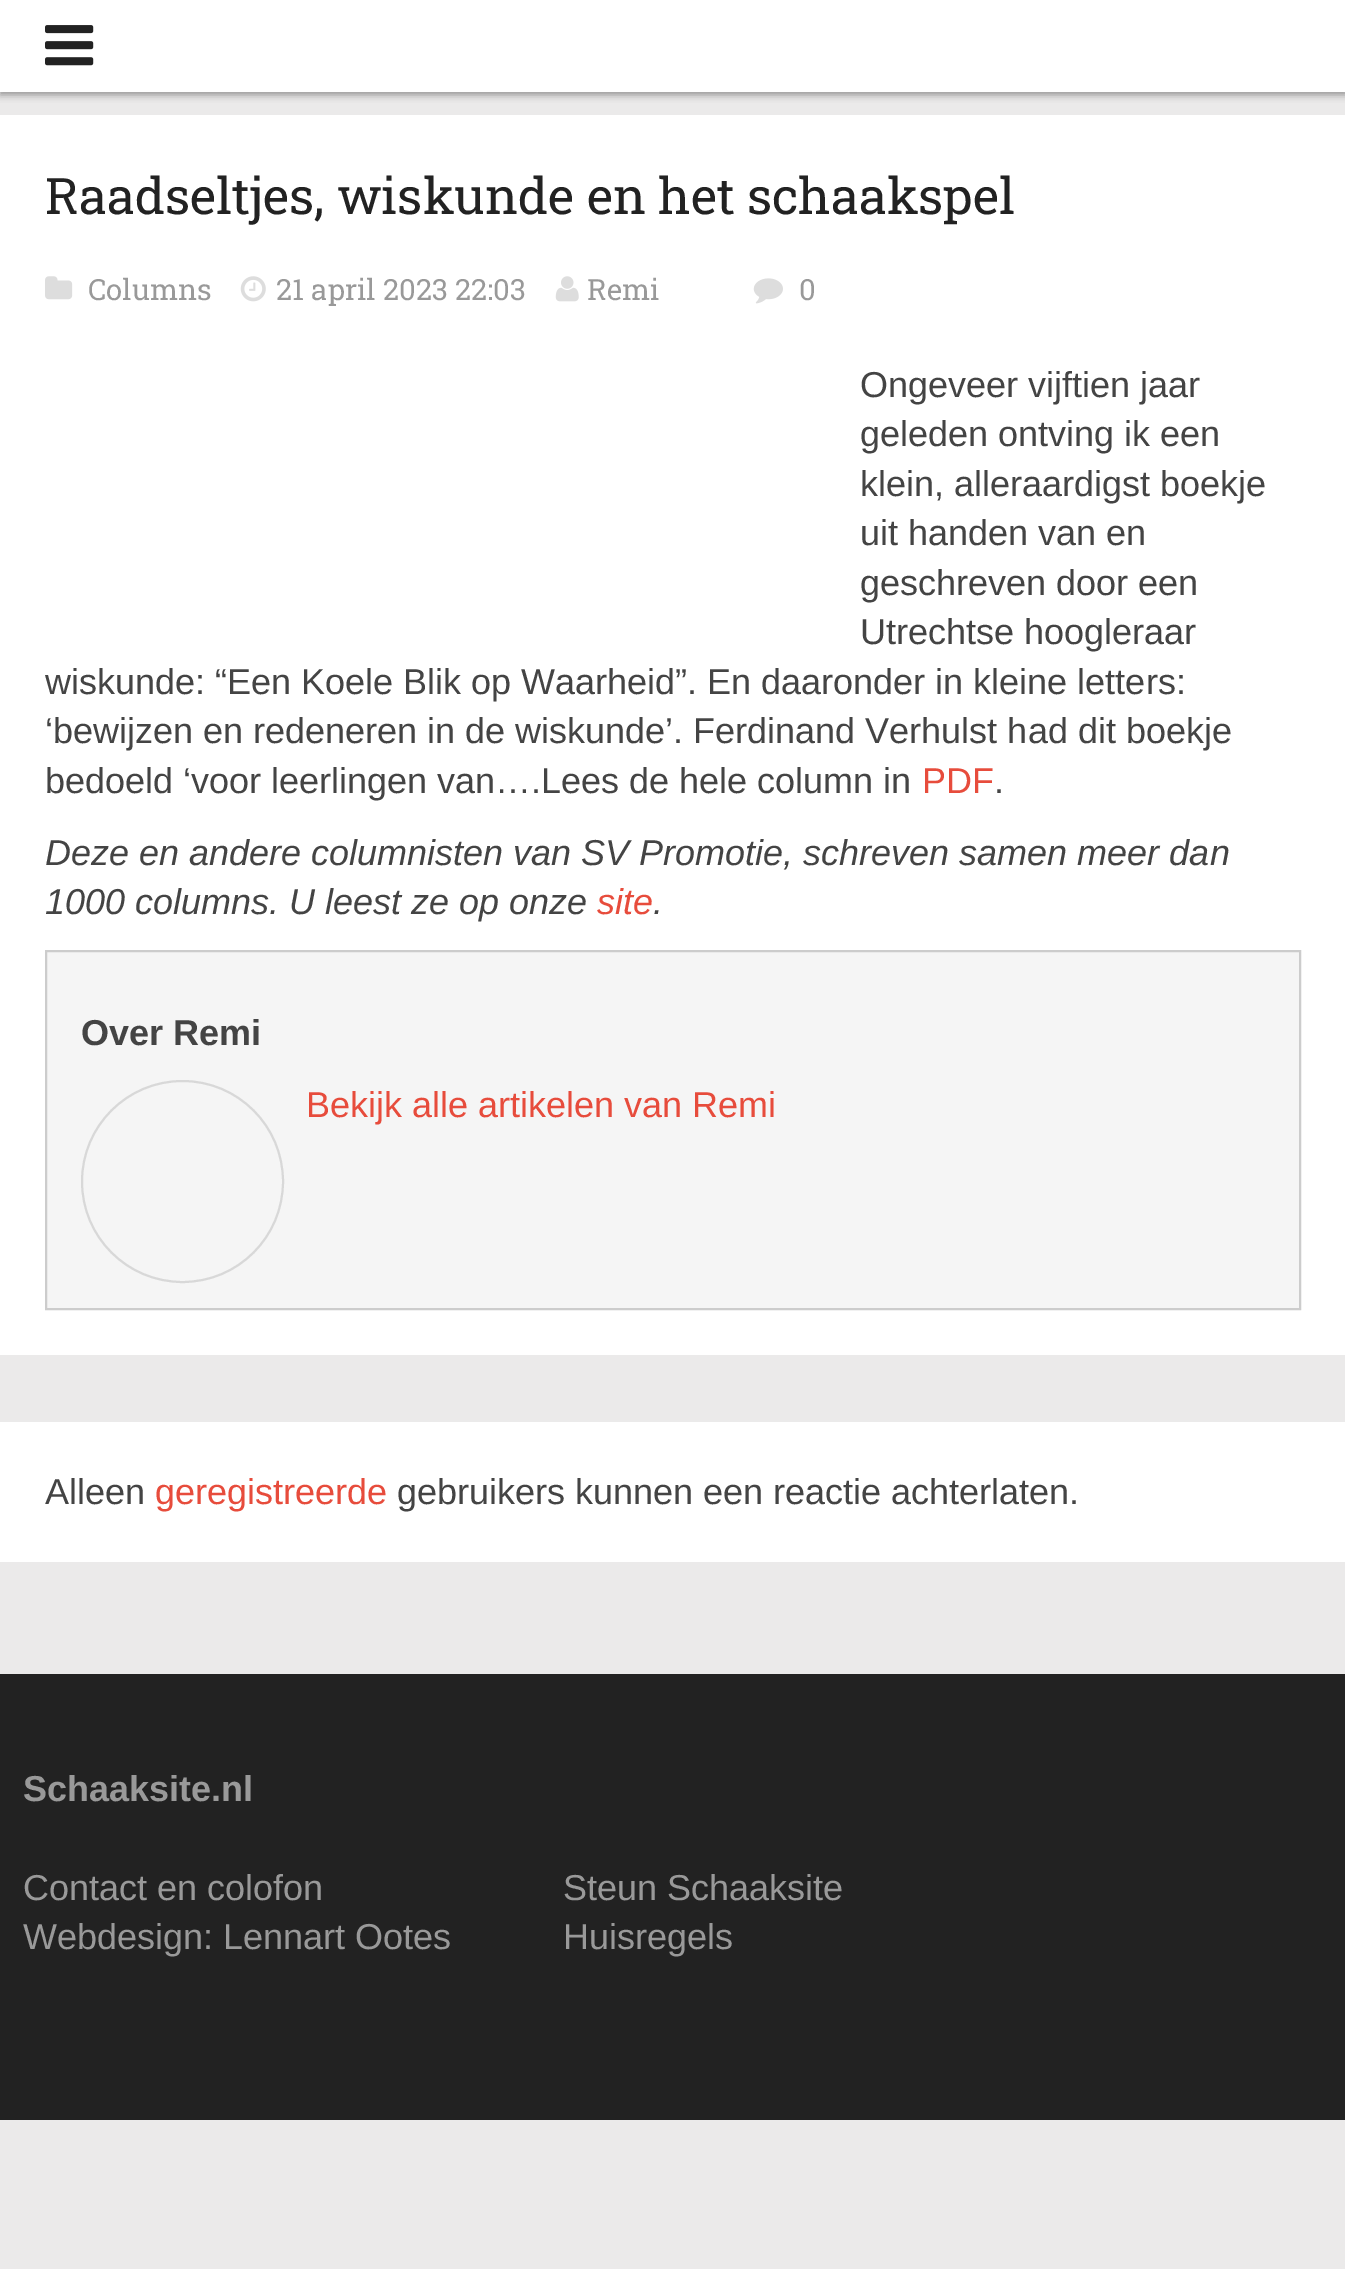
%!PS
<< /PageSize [1345 2269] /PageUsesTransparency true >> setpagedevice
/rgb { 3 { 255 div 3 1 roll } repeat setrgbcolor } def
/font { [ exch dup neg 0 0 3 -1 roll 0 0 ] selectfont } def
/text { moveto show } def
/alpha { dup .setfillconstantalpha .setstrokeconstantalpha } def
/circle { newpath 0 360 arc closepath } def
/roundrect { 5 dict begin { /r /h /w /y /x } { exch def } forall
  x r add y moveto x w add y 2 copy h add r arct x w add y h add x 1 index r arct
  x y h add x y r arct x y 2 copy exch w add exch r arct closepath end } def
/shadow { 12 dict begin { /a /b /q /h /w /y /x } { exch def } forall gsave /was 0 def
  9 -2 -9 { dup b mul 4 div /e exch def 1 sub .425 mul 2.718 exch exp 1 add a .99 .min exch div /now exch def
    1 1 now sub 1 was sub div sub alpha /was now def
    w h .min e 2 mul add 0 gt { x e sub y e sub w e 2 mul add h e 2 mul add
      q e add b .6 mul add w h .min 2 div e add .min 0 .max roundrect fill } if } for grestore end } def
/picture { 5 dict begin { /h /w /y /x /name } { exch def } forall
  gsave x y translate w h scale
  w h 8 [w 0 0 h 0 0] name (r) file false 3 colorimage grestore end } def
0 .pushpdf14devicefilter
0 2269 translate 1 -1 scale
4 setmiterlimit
235 234 234 rgb
0 0 1345 2269 rectfill
0 0 0 rgb
0 2 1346 93 0 3.5 0.35 shadow
255 255 255 rgb
0 0 1345 92 rectfill
(img_01.rgb) 45 25 49 41 picture
0 115 1345 1240 rectfill
(img_02.rgb) 45 276 28 24 picture
(img_03.rgb) 240 276 26 26 picture
(img_04.rgb) 555 276 24 26 picture
(img_05.rgb) 753 278 30 26 picture
245 245 245 rgb
46 951 moveto 1254 0 rlineto 0 358 rlineto -1254 0 rlineto closepath gsave fill grestore
204 204 204 rgb
2 setlinewidth
stroke
216 216 216 rgb
182.5 1181.5 100.5 circle stroke
255 255 255 rgb
0 1422 1345 140 rectfill
34 34 34 rgb
0 1674 1345 446 rectfill
/RobotoSlab-Regular 50.4 font
(Raadseltjes, wiskunde en het schaakspel) 45 214 text
/RobotoSlab-Regular 29.25 font
153 153 153 rgb
(Columns) 88 300 text
(21 april 2023 22:03) 276 300 text
(Remi) 587 300 text
(0) 799 300 text
/LiberationSans-Regular 36 font
68 68 68 rgb
(Ongeveer vijftien jaar) 860 397 text
(geleden ontving ik een) 860 446 text
(klein, alleraardigst boekje) 860 496 text
(uit handen van en) 860 545 text
(geschreven door een) 860 595 text
(Utrechtse hoogleraar) 860 644 text
(wiskunde: “Een Koele Blik op Waarheid”. En daaronder in kleine letters:) 45 694 text
(‘bewijzen en redeneren in de wiskunde’. Ferdinand Verhulst had dit boekje) 45 743 text
(bedoeld ‘voor leerlingen van….Lees de hele column in) 45 793 text
231 76 60 rgb
(PDF) 922 793 text
68 68 68 rgb
(.) 994 793 text
/LiberationSans-Italic 36 font
(Deze en andere columnisten van SV Promotie, schreven samen meer dan) 45 865 text
(1000 columns. U leest ze op onze) 45 914 text
231 76 60 rgb
(site) 597 914 text
68 68 68 rgb
(.) 653 914 text
/LiberationSans-Bold 36 font
(Over Remi) 81 1045 text
/LiberationSans-Regular 36 font
231 76 60 rgb
(Bekijk alle artikelen van Remi) 306 1117 text
68 68 68 rgb
(Alleen) 45 1504 text
231 76 60 rgb
(geregistreerde) 155 1504 text
68 68 68 rgb
(gebruikers kunnen een reactie achterlaten.) 397 1504 text
/LiberationSans-Bold 36 font
153 153 153 rgb
(Schaaksite.nl) 23 1801 text
/LiberationSans-Regular 36 font
(Contact en colofon) 23 1900 text
(Webdesign: Lennart Ootes) 23 1949 text
(Steun Schaaksite) 563 1900 text
(Huisregels) 563 1949 text
.poppdf14devicefilter showpage
